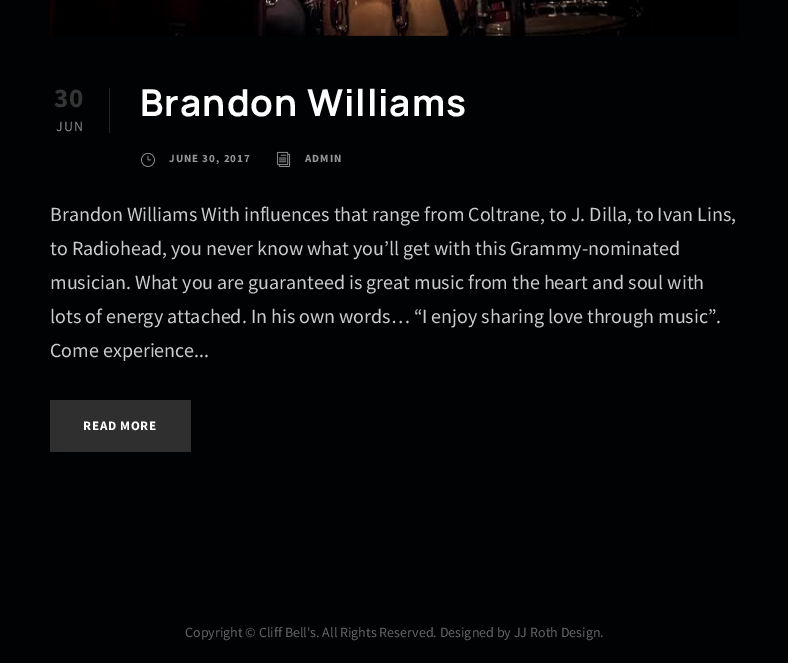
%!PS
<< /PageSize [788 663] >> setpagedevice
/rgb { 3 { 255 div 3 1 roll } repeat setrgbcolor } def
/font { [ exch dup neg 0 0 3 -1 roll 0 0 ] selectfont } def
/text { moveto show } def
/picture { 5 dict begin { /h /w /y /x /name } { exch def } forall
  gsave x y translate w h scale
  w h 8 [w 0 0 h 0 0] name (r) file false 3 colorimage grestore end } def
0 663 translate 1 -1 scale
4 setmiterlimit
1 2 3 rgb
0 0 788 663 rectfill
0 0 0 rgb
50 0 688 36 rectfill
(img_01.rgb) 50 0 602 36 picture
33 33 33 rgb
109 88 1 45 rectfill
(img_02.rgb) 141 153 14 14 picture
(img_03.rgb) 276 151 15 16 picture
47 47 47 rgb
50 400 141 52 rectfill
/SourceSansPro-Bold 27 font
53 53 53 rgb
54 107 moveto 1 0 (30) ashow
/SourceSansPro-Regular 14 font
138 138 138 rgb
56 131 moveto 1 0 (JUN) ashow
/Manrope-Bold 37 font
255 255 255 rgb
140 116 moveto 1 0 (Brandon Williams) ashow
/SourceSansPro-Bold 11 font
149 149 149 rgb
169 162 moveto 1 0 (JUNE 30, 2017) ashow
305 162 moveto 1 0 (ADMIN) ashow
/SourceSansPro-Regular 20 font
204 204 204 rgb
(Brandon Williams With influences that range from Coltrane, to J. Dilla, to Ivan Lins,) 50 221 text
(to Radiohead, you never know what you’ll get with this Grammy-nominated) 50 255 text
(musician. What you are guaranteed is great music from the heart and soul with) 50 289 text
(lots of energy attached. In his own words… “I enjoy sharing love through music”.) 50 323 text
(Come experience...) 50 357 text
/SourceSansPro-Bold 13 font
255 255 255 rgb
83 430 moveto 0.75 0 (READ MORE) ashow
/SourceSansPro-Regular 14 font
102 102 102 rgb
(Copyright © Cliff Bell's. All Rights Reserved. Designed by JJ Roth Design.) 185 637 text
showpage
